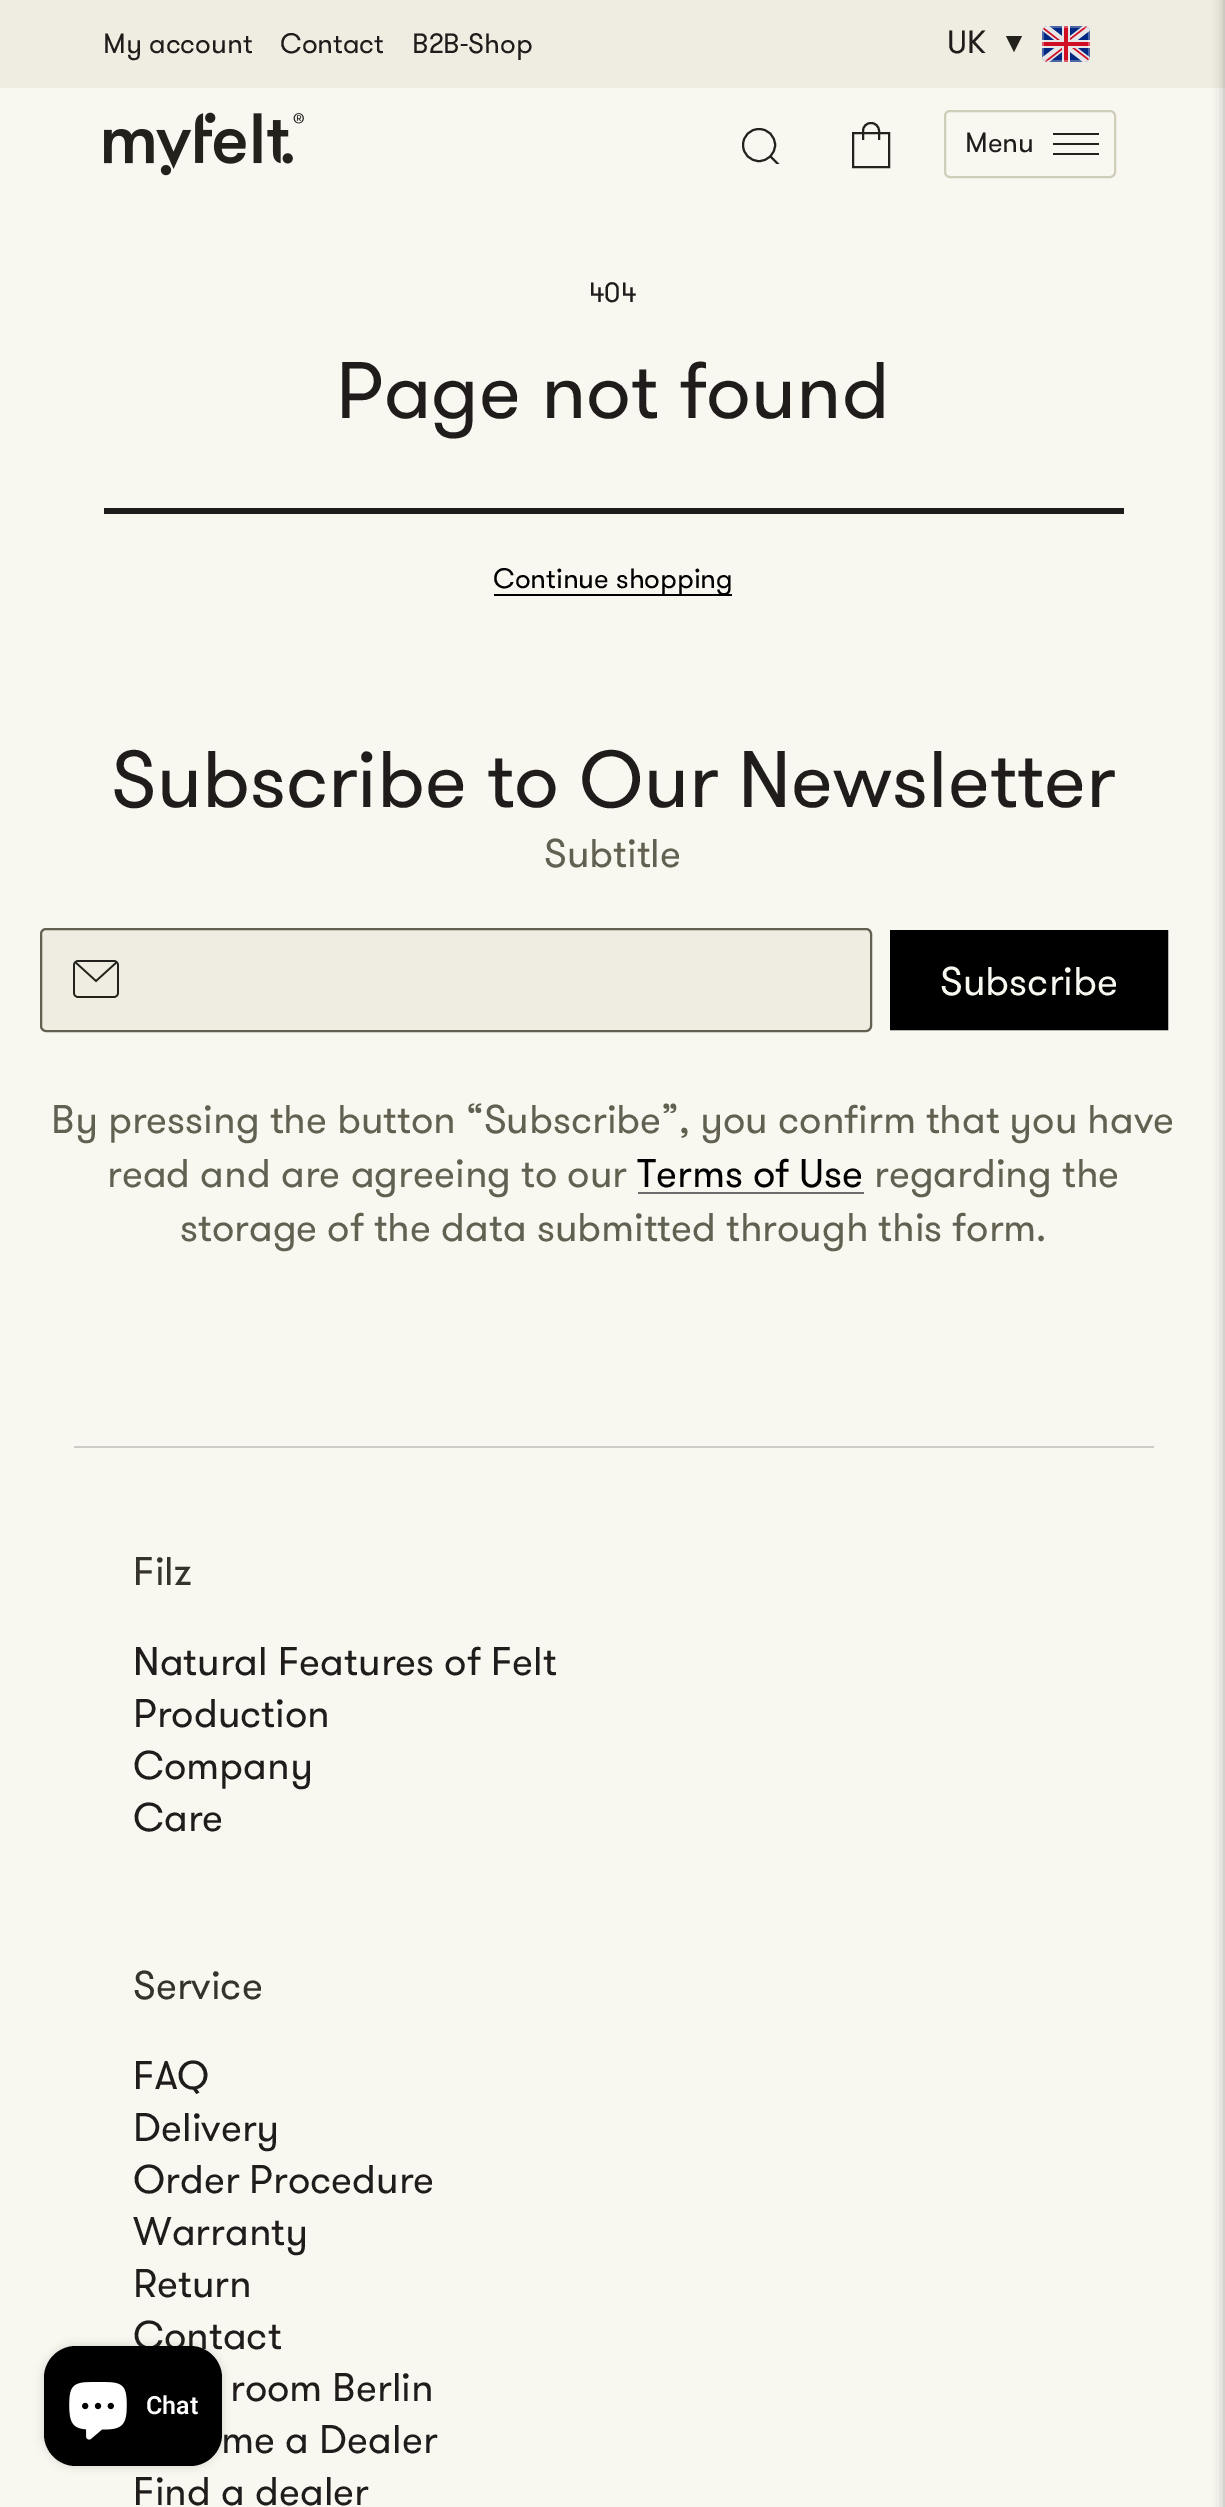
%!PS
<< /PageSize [1225 2507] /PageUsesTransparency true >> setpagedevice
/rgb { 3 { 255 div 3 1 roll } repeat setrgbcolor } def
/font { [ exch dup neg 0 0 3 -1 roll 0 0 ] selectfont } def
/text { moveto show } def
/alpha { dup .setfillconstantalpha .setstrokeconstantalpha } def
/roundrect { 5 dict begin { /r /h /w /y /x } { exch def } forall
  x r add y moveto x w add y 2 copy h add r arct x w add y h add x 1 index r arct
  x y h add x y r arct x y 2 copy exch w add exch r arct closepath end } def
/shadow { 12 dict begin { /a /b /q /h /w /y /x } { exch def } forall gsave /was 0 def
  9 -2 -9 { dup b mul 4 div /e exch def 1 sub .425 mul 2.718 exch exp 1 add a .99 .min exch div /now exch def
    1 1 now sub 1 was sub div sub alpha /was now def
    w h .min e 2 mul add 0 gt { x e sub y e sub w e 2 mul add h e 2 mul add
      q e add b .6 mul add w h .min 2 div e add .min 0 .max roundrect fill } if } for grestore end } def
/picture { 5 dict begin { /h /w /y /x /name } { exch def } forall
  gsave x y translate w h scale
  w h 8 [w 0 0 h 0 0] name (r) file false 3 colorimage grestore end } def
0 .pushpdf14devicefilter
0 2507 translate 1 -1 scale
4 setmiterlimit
248 247 240 rgb
0 0 1225 2507 rectfill
239 237 225 rgb
0 0 1225 88 rectfill
34 33 28 rgb
1006 36 moveto 16 0 rlineto -8 16 rlineto closepath fill
(img_01.rgb) 1042 26 48 36 picture
(img_02.rgb) 104 112 200 64 picture
gsave
738 124 48 40 rectclip
2 setlinewidth
2 setlinecap
783 169 moveto -12.5 -12.5 rlineto stroke
grestore
2 setlinewidth
2 setlinecap
759 161 moveto 9 0 16 -7 16 -16 rcurveto 0 -9 -7 -16 -16 -16 rcurveto -9 0 -16 7 -16 16 rcurveto 0 9 7 16 16 16 rcurveto closepath stroke
889 167 moveto -36 0 rlineto 0 -34 rlineto 36 0 rlineto closepath 863 139 moveto 0 -8 rlineto 0 -4.5 3.5 -8 8 -8 rcurveto 4.5 0 8 3.5 8 8 rcurveto 0 8 rlineto stroke
208 205 185 rgb
0 setlinecap
945 111 170 66 5 roundrect stroke
34 33 28 rgb
1053 133 46 2 rectfill
1053 143 46 2 rectfill
1053 153 46 2 rectfill
0 0 0 rgb
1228 0 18 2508 0 7 0.5 shadow
33 28 28 rgb
104 508 1020 6 rectfill
0 0 0 rgb
494 594 238 2 rectfill
239 237 225 rgb
41 929 830 102 5 roundrect gsave fill grestore
98 96 80 rgb
stroke
(img_03.rgb) 73 960 46 38 picture
0 0 0 rgb
891 931 276 98 rectstroke
892 932 274 96 rectfill
109 107 107 rgb
638 1192 226 2 rectfill
205 204 198 rgb
74 1446 1080 2 rectfill
0 0 0 rgb
44 2346 178 120 32 5 0.15 shadow
/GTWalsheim-Regular 28 font
33 28 28 rgb
(My account) 103 53 text
(Contact) 280 53 text
(B2B-Shop) 412 53 text
/GTWalsheim-Regular 32 font
(UK) 947 53 text
/GTWalsheim-Regular 28 font
(Menu) 965 152 text
(404) 589 302 text
/GTWalsheim-Regular 80 font
(Page not found) 336 418 text
/GTWalsheim-Regular 28 font
0 0 0 rgb
(Continue shopping) 493 588 text
/GTWalsheim-Regular 80 font
33 28 28 rgb
(Subscribe to Our Newsletter) 111 807 text
/GTWalsheim-Regular 40 font
98 96 80 rgb
(Subtitle) 544 867 text
248 247 240 rgb
(Subscribe) 940 995 text
98 96 80 rgb
(By pressing the button “Subscribe”, you confirm that you have) 51 1133 text
(read and are agreeing to our) 107 1187 text
0 0 0 rgb
(Terms of Use) 637 1187 text
98 96 80 rgb
(regarding the) 874 1187 text
(storage of the data submitted through this form.) 180 1241 text
53 51 43 rgb
(Filz) 133 1585 text
33 28 28 rgb
(Natural Features of Felt) 133 1675 text
(Production) 133 1727 text
(Company) 133 1779 text
(Care) 133 1831 text
53 51 43 rgb
(Service) 133 1999 text
33 28 28 rgb
(FAQ) 133 2089 text
(Delivery) 133 2141 text
(Order Procedure) 133 2193 text
(Warranty) 133 2245 text
(Return) 133 2297 text
(Contact) 133 2349 text
(room Berlin) 230 2401 text
(me a Dealer) 221 2453 text
(Find a dealer) 133 2505 text
0 0 0 rgb
44 2346 178 120 32 roundrect fill
(img_04.rgb) 69 2382 58 58 picture
/Roboto-SemiBold 25 font
255 255 255 rgb
(Chat) 146 2414 text
.poppdf14devicefilter showpage
